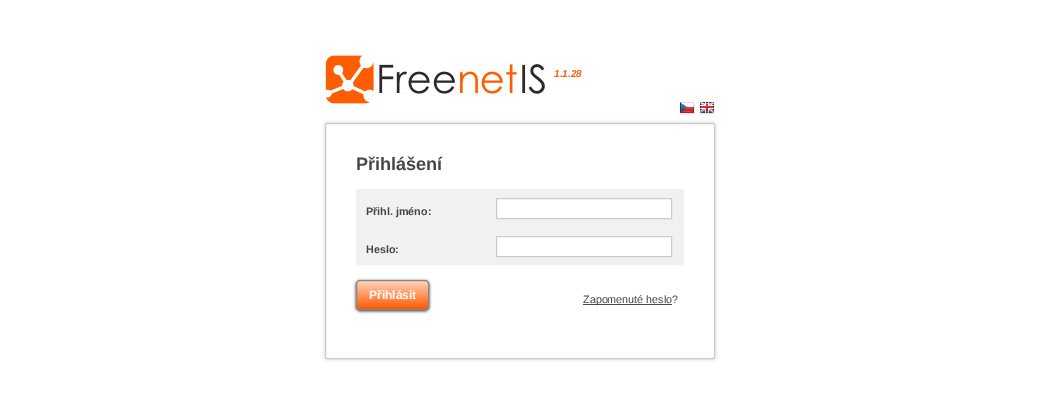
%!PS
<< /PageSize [1039 404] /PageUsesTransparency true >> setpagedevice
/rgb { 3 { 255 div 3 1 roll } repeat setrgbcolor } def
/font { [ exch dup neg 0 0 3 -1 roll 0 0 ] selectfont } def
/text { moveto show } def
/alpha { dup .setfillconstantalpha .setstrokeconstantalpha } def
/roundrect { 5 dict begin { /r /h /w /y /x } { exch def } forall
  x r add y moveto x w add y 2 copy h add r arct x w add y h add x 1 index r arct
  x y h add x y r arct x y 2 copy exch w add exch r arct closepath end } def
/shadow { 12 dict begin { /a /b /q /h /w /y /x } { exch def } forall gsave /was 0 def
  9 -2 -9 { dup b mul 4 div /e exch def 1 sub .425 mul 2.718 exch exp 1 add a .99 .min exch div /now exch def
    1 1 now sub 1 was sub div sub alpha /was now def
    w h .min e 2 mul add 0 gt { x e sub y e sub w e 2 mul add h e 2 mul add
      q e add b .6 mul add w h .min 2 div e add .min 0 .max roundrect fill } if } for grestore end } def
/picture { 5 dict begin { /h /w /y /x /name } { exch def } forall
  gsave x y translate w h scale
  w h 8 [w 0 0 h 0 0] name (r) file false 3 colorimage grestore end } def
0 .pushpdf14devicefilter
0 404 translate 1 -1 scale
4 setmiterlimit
255 255 255 rgb
0 0 1039 404 rectfill
(img_01.rgb) 325 55 224 49 picture
(img_02.rgb) 679 102 16 13 picture
(img_03.rgb) 699 102 16 13 picture
gsave
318 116 moveto 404 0 rlineto 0 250 rlineto -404 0 rlineto closepath 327 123 moveto 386 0 rlineto 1 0 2 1 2 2 rcurveto 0 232 rlineto 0 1 -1 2 -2 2 rcurveto -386 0 rlineto -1 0 -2 -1 -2 -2 rcurveto 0 -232 rlineto 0 -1 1 -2 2 -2 rcurveto closepath eoclip newpath
204 204 204 rgb
325 123 390 236 2 2 1 shadow
grestore
204 204 204 rgb
325.5 123.5 389 235 1.5 roundrect stroke
241 241 241 rgb
356 189 328 76 rectfill
255 255 255 rgb
496.5 198.5 moveto 175 0 rlineto 0 20 rlineto -175 0 rlineto closepath gsave fill grestore
204 204 204 rgb
stroke
255 255 255 rgb
496.5 236.5 moveto 175 0 rlineto 0 20 rlineto -175 0 rlineto closepath gsave fill grestore
204 204 204 rgb
stroke
43 43 43 rgb
356 281 73 30 4 1.5 1 shadow
gsave
356 280 73 30 4 roundrect clip newpath
gsave 356 281 moveto 73 0 rlineto 0 28 rlineto -73 0 rlineto closepath clip newpath
<< /ShadingType 2 /ColorSpace /DeviceRGB /Coords [393 281 393 309] /Extend [true true] /Function << /FunctionType 3 /Domain [0 1] /Functions [<< /FunctionType 2 /Domain [0 1] /C0 [0.996 0.376 0.02] /C1 [1 0.824 0.729] /N 1 >> << /FunctionType 2 /Domain [0 1] /C0 [1 0.824 0.729] /C1 [1 0.349 0] /N 1 >>] /Bounds [0.01] /Encode [0 1 0 1] >> >> shfill grestore
grestore
135 135 135 rgb
356.5 280.5 72 29 3.5 roundrect stroke
70 70 70 rgb
583 304 89 1 rectfill
/LiberationSans-BoldItalic 10 font
251 94 16 rgb
(1.1.28) 554 77 text
/LiberationSans-Bold 18 font
70 70 70 rgb
(Přihlášení) 356 170 text
/LiberationSans-Bold 10.75 font
(Přihl. jméno:) 366 215 text
(Heslo:) 366 253 text
/LiberationSans-Bold 12 font
255 255 255 rgb
(Přihlásit) 369 299 text
/LiberationSans-Regular 10.75 font
70 70 70 rgb
(Zapomenuté heslo?) 583 303 text
.poppdf14devicefilter showpage
